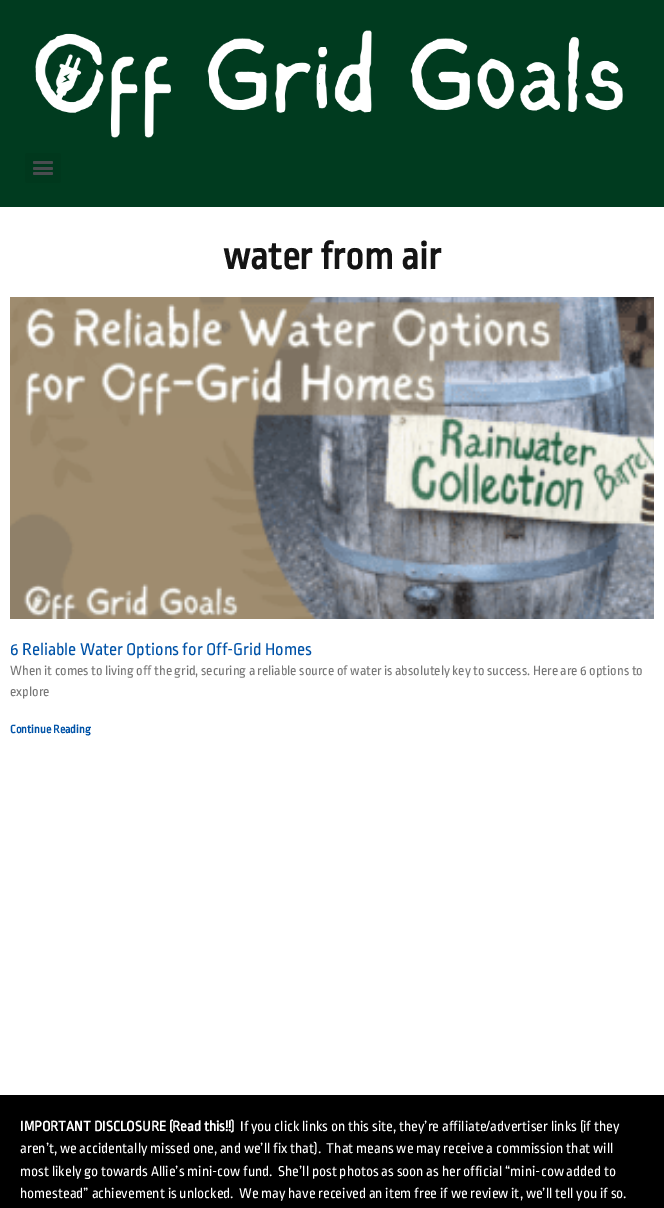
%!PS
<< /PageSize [664 1208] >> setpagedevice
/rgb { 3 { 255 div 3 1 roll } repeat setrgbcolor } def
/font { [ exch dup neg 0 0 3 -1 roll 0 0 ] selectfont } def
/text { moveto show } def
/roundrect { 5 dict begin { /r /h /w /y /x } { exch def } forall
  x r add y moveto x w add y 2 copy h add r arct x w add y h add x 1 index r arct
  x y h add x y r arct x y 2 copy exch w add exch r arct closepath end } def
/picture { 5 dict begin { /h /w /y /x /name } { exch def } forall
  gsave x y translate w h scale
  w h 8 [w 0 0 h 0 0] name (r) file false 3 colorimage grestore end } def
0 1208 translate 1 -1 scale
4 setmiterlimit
255 255 255 rgb
0 0 664 1208 rectfill
0 59 31 rgb
0 0 664 207 rectfill
(img_01.rgb) 35 30 588 108 picture
0 56 29 rgb
25 153 36 30 3 roundrect fill
73 76 79 rgb
33 167 20 3 1.5 roundrect fill
33 161 20 3 1.5 roundrect fill
33 172 20 3 1.5 roundrect fill
(img_02.rgb) 10 297 644 322 picture
0 0 0 rgb
0 1095 664 113 rectfill
/RopaSans-Bold 40 font
20 20 20 rgb
(water from air) 223 269 text
/RopaSans-Regular 18 font
0 83 168 rgb
(6 Reliable Water Options for Off-Grid Homes) 10 655 text
/RopaSans-Regular 14 font
119 119 119 rgb
(When it comes to living off the grid, securing a reliable source of water is absolutely key to success. Here are 6 options to) 10 675 text
(explore) 10 696 text
/RopaSans-Bold 12 font
0 83 168 rgb
(Continue Reading) 10 733 text
/RopaSans-Bold 15 font
255 255 255 rgb
(IMPORTANT DISCLOSURE \(Read this!!\)) 20 1131 text
/RopaSans-Regular 15 font
(If you click links on this site, they’re affiliate/advertiser links \(if they) 240 1131 text
(aren’t, we accidentally missed one, and we’ll fix that\).  That means we may receive a commission that will) 20 1153 text
(most likely go towards Allie’s mini-cow fund.  She’ll post photos as soon as her official “mini-cow added to) 20 1176 text
(homestead” achievement is unlocked.) 20 1198 text
(We may have received an item free if we review it, we’ll tell you if so.) 239 1198 text
showpage
